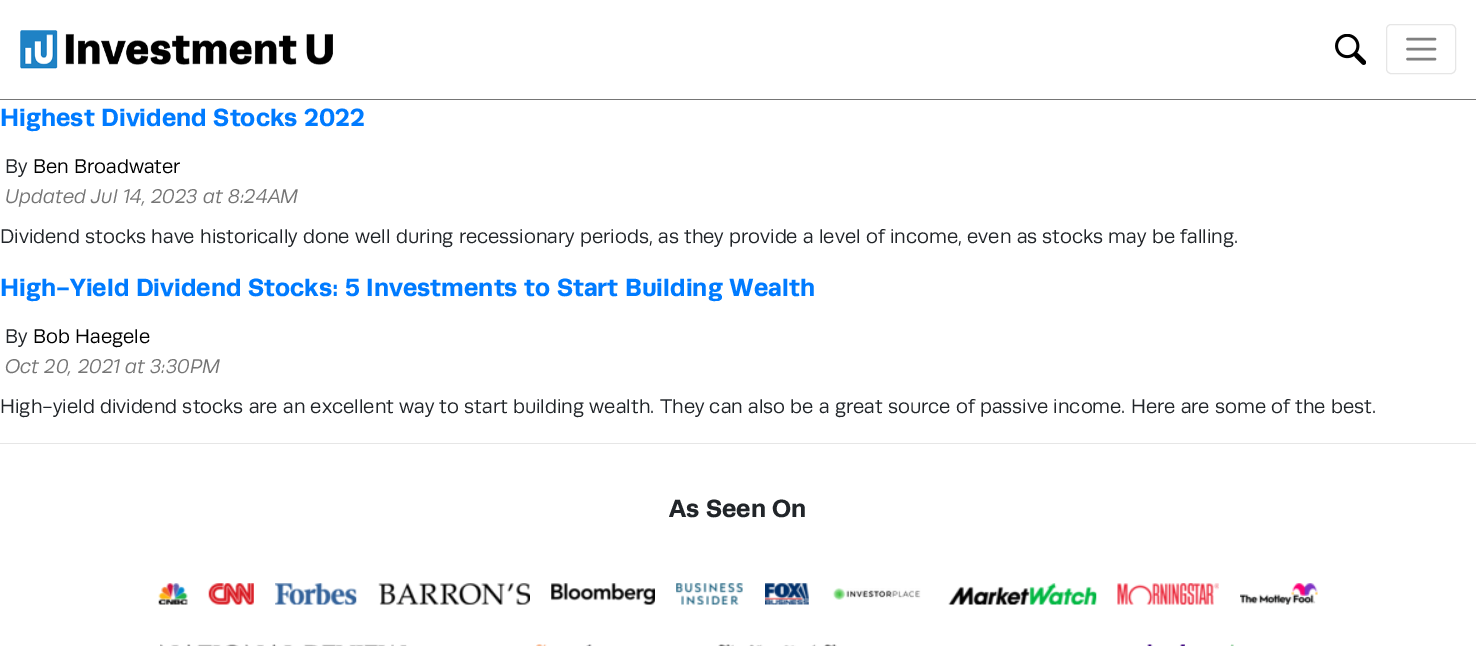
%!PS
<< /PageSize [1476 646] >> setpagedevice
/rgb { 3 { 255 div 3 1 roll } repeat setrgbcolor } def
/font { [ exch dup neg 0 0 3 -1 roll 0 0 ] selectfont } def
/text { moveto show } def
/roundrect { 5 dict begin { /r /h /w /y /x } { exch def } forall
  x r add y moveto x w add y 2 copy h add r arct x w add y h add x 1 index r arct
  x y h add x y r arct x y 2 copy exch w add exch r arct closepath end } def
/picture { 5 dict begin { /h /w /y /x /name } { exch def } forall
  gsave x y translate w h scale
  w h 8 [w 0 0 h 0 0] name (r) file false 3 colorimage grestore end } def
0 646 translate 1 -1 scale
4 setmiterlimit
255 255 255 rgb
0 0 1476 646 rectfill
117 117 117 rgb
0 99 1476 1 rectfill
(img_01.rgb) 20 30 313 39 picture
(img_02.rgb) 1335 34 31 31 picture
230 230 230 rgb
1386.5 24.5 69 49 4.5 roundrect stroke
128 128 128 rgb
2.5 setlinewidth
1 setlinecap
1407.5 39 moveto 27.5 0 rlineto 1407.5 49 moveto 27.5 0 rlineto 1407.5 59 moveto 27.5 0 rlineto stroke
230 230 230 rgb
0 443 1476 1 rectfill
(img_03.rgb) 158 583 30 22 picture
(img_04.rgb) 208 583 46 22 picture
(img_05.rgb) 275 583 82 22 picture
(img_06.rgb) 378 583 152 22 picture
(img_07.rgb) 551 583 104 22 picture
(img_08.rgb) 676 583 67 22 picture
(img_09.rgb) 765 583 44 22 picture
(img_10.rgb) 832 588 89 12 picture
(img_11.rgb) 948 583 149 22 picture
(img_12.rgb) 1117 583 102 22 picture
(img_13.rgb) 1240 583 78 22 picture
(img_14.rgb) 160 644 247 2 picture
(img_15.rgb) 536 644 11 2 picture
(img_16.rgb) 586 644 6 2 picture
(img_17.rgb) 718 644 119 2 picture
(img_18.rgb) 1147 644 38 2 picture
(img_19.rgb) 1230 644 4 2 picture
/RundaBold-Bold 25 font
0 123 255 rgb
(Highest Dividend Stocks 2022) 0 126 text
/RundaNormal-Regular 20 font
33 37 41 rgb
(By) 5 173 text
0 0 0 rgb
(Ben Broadwater) 33 173 text
/RundaNormal-Italic 20 font
117 117 117 rgb
(Updated Jul 14, 2023 at 8:24AM) 5 203 text
/RundaNormal-Regular 20 font
33 37 41 rgb
(Dividend stocks have historically done well during recessionary periods, as they provide a level of income, even as stocks may be falling.) 0 243 text
/RundaBold-Bold 25 font
0 123 255 rgb
(High-Yield Dividend Stocks: 5 Investments to Start Building Wealth) 0 296 text
/RundaNormal-Regular 20 font
33 37 41 rgb
(By) 5 343 text
0 0 0 rgb
(Bob Haegele) 33 343 text
/RundaNormal-Italic 20 font
117 117 117 rgb
(Oct 20, 2021 at 3:30PM) 5 373 text
/RundaNormal-Regular 20 font
33 37 41 rgb
(High-yield dividend stocks are an excellent way to start building wealth. They can also be a great source of passive income. Here are some of the best.) 0 413 text
/RundaBold-Bold 25 font
(As Seen On) 669 517 text
showpage
